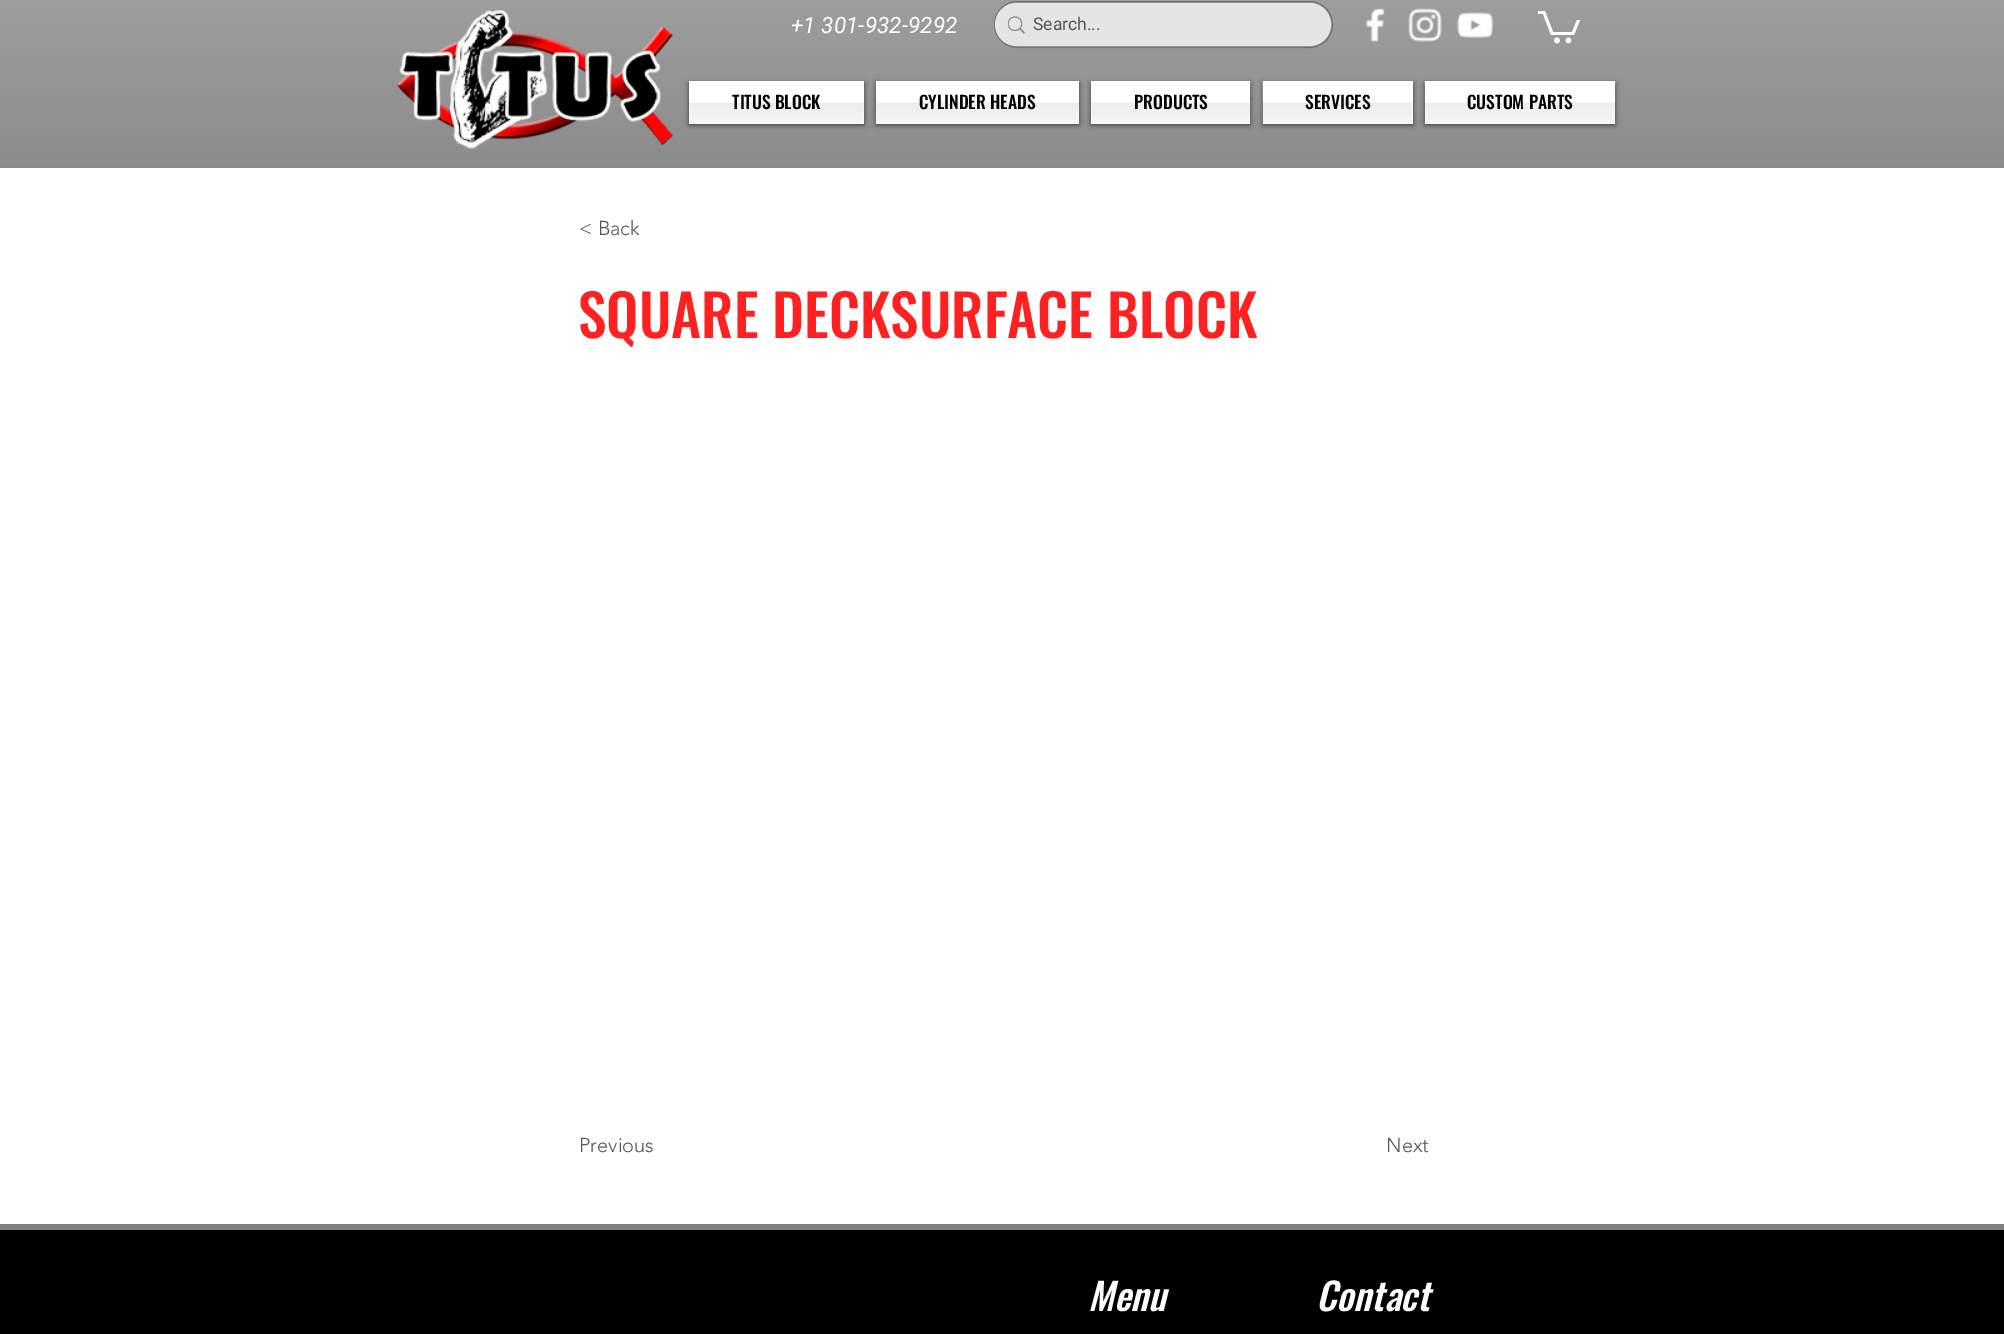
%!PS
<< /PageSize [2004 1334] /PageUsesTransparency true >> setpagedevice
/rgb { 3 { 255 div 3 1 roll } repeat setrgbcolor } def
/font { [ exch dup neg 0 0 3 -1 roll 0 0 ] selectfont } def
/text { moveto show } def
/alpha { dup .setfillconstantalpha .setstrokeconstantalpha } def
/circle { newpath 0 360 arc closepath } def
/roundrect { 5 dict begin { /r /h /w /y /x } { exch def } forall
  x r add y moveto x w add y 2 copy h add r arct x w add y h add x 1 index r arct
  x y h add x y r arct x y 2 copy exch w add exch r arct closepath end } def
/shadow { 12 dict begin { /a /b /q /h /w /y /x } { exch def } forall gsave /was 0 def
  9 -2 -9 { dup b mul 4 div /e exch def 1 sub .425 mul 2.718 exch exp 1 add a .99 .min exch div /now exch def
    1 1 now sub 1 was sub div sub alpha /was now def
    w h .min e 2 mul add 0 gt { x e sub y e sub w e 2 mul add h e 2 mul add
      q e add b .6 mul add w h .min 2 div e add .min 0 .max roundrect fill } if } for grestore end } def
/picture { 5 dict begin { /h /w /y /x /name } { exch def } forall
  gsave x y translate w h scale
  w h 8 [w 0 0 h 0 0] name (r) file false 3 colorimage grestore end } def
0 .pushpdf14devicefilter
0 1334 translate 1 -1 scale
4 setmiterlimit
255 255 255 rgb
0 0 2004 1334 rectfill
123 123 123 rgb
0 0 2004 168 rectfill
(img_01.rgb) 0 0 2004 168 picture
(img_02.rgb) 396 10 277 139 picture
0.6 alpha
85 85 85 rgb
994.5 1.5 338 46 23 roundrect stroke
0.74 alpha
255 255 255 rgb
995 3 336 43 21.5 roundrect fill
1 alpha
(img_03.rgb) 1008 16 17 18 picture
(img_04.rgb) 1365 8 20 34 picture
(img_05.rgb) 1408 8 34 34 picture
(img_06.rgb) 1456 12 37 26 picture
1580 20 moveto -6 15 rlineto -23 0 rlineto -8 -21 rlineto -5 0 rlineto 0 -3 rlineto 7 0 rlineto 8 21 rlineto 19 0 rlineto 5 -12 rlineto fill
1568.4 40.4 2.8 circle fill
1557 40.4 2.8 circle fill
0 0 0 rgb
689 83 175 42 0 2.5 0.6 shadow
255 255 255 rgb
689 81 175 43 rectfill
(img_07.rgb) 689 102 175 22 picture
0 0 0 rgb
876 83 203 42 0 2.5 0.6 shadow
255 255 255 rgb
876 81 203 43 rectfill
(img_08.rgb) 875 83 204 41 picture
0 0 0 rgb
1091 83 159 42 0 2.5 0.6 shadow
255 255 255 rgb
1091 81 159 43 rectfill
(img_09.rgb) 1090 81 161 43 picture
0 0 0 rgb
1263 83 150 42 0 2.5 0.6 shadow
255 255 255 rgb
1263 81 150 43 rectfill
(img_10.rgb) 1262 81 151 43 picture
0 0 0 rgb
1425 83 190 42 0 2.5 0.6 shadow
255 255 255 rgb
1425 81 190 43 rectfill
(img_11.rgb) 1424 81 192 43 picture
0 0 0 rgb
0 1230 2004 104 rectfill
128 128 128 rgb
0 1224 2004 6 rectfill
/Roboto-Italic 22.5 font
255 255 255 rgb
(+1 301-932-9292) 791 33 text
/Roboto-Regular 17.5 font
85 85 85 rgb
(Search...) 1033 30 text
/Oswald-Medium 17.5 font
0 0 0 rgb
(TITUS BLOCK) 732 109 text
(CYLINDER HEADS) 919 109 text
(PRODUCTS) 1134 109 text
(SERVICES) 1305 109 text
(CUSTOM PARTS) 1467 109 text
/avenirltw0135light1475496-Light 20 font
85 85 85 rgb
(< Back) 579 235 text
/Oswald-Medium 57.5 font
253 33 33 rgb
(SQUARE DECKSURFACE BLOCK) 578 338 text
/avenirltw0135light1475496-Light 20 font
85 85 85 rgb
(Previous) 579 1152 text
(Next) 1386 1152 text
/Oswald-MediumItalic 37.5 font
255 255 255 rgb
(Menu) 1088 1311 text
(Contact) 1316 1311 text
.poppdf14devicefilter showpage
